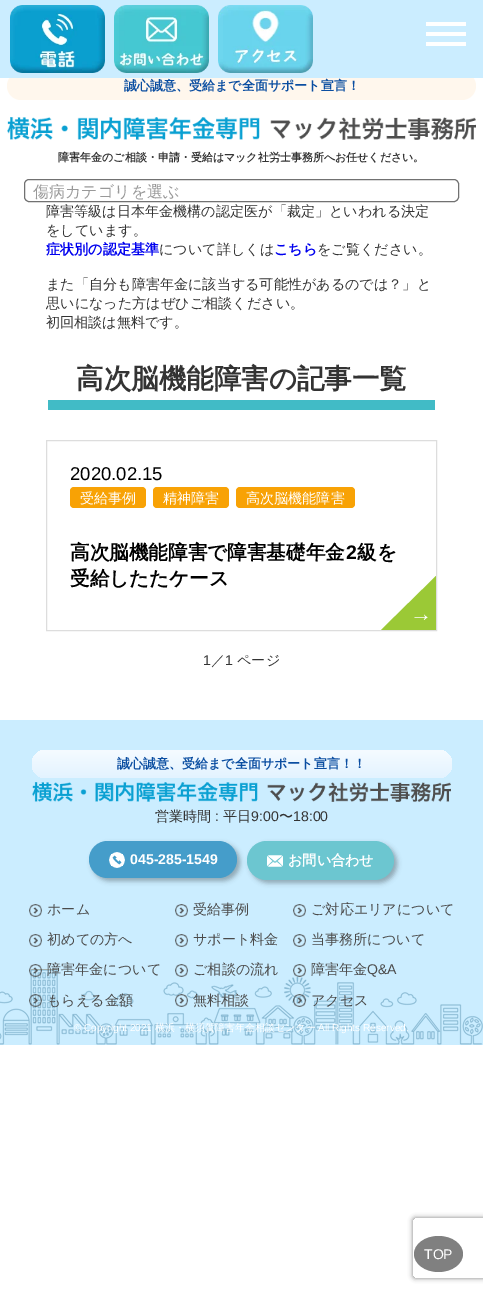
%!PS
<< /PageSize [483 1292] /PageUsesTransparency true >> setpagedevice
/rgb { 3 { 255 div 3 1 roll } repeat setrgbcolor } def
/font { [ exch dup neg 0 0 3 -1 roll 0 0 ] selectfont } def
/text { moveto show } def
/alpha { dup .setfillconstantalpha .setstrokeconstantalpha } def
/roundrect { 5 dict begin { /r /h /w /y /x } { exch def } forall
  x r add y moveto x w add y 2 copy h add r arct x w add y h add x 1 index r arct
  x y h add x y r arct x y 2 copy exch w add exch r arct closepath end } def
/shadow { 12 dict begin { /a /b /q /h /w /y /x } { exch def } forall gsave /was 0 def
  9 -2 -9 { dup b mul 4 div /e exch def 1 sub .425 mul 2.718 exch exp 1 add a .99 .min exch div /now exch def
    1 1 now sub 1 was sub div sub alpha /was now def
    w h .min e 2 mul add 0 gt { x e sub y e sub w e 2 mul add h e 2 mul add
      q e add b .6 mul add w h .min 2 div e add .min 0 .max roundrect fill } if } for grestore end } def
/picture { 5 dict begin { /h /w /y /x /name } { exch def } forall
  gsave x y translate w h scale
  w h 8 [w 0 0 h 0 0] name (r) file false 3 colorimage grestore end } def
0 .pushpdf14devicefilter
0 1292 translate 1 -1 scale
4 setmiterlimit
255 255 255 rgb
0 0 483 1292 rectfill
255 247 237 rgb
7 72 469 28 14 roundrect fill
203 237 255 rgb
0 0 483 78 rectfill
(img_01.rgb) 10 5 95 68 picture
(img_02.rgb) 114 5 95 68 picture
(img_03.rgb) 218 5 95 68 picture
255 255 255 rgb
426 22 40 4 rectfill
426 32 40 4 rectfill
426 42 40 4 rectfill
(img_04.rgb) 7 117 469 23 picture
113 113 113 rgb
24.5 179.5 434 22 4.5 roundrect stroke
65 187 198 rgb
48 400 387 10 rectfill
221 221 221 rgb
46.5 440.5 390 190 rectstroke
248 162 5 rgb
70 487 76 21 4 roundrect fill
153 487 76 21 4 roundrect fill
236 487 119 21 4 roundrect fill
155 201 54 rgb
436 630 moveto -55 0 rlineto 55 -54 rlineto closepath fill
203 237 255 rgb
0 720 483 325 rectfill
(img_05.rgb) 0 969 483 76 picture
gsave 32 750 420 28 14 roundrect clip newpath
<< /ShadingType 2 /ColorSpace /DeviceRGB /Coords [242 750 242 778] /Extend [true true] /Function << /FunctionType 2 /Domain [0 1] /C0 [0.961 0.984 1] /C1 [0.89 0.953 1] /N 1 >> >> shfill grestore
(img_06.rgb) 32 782 419 20 picture
0 0 0 rgb
92 844 148 37 18.5 2.5 0.3 shadow
69 157 202 rgb
89 841 148 37 18.5 roundrect fill
(img_07.rgb) 109 852 16 16 picture
0 0 0 rgb
250 844 147 39 19.5 2.5 0.3 shadow
108 198 208 rgb
247 841 147 39 19.5 roundrect fill
(img_08.rgb) 267 855 16 12 picture
(img_09.rgb) 29 904 13 13 picture
(img_09.rgb) 29 934 13 13 picture
(img_10.rgb) 29 964 13 13 picture
(img_11.rgb) 29 994 13 13 picture
(img_12.rgb) 175 904 13 13 picture
(img_12.rgb) 175 934 13 13 picture
(img_12.rgb) 175 964 13 13 picture
(img_13.rgb) 175 994 13 13 picture
(img_12.rgb) 293 904 13 13 picture
(img_12.rgb) 293 934 13 13 picture
(img_14.rgb) 293 964 13 13 picture
(img_15.rgb) 293 994 13 13 picture
gsave
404 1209 moveto 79 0 rlineto 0 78 rlineto -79 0 rlineto closepath 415 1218 moveto 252 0 rlineto 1 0 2 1 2 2 rcurveto 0 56 rlineto 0 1 -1 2 -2 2 rcurveto -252 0 rlineto -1 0 -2 -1 -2 -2 rcurveto 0 -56 rlineto 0 -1 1 -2 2 -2 rcurveto closepath eoclip newpath
128 128 128 rgb
413 1218 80 60 2 2.5 1 shadow
grestore
128 128 128 rgb
438.5 1236 moveto 13.5 0 24.5 8 24.5 18 rcurveto 0 10 -11 18 -24.5 18 rcurveto -13.5 0 -24.5 -8 -24.5 -18 rcurveto 0 -10 11 -18 24.5 -18 rcurveto closepath fill
/WenQuanYiZenHei-Bold 13 font
11 78 161 rgb
(誠心誠意、受給まで全面サポート宣言！) 124 90 text
/WenQuanYiZenHei-Bold 11 font
51 51 51 rgb
(障害年金のご相談・申請・受給はマック社労士事務所へお任せください。) 58 161 text
/WenQuanYiZenHei-Medium 16 font
153 153 153 rgb
(傷病カテゴリを選ぶ) 33 197 text
/WenQuanYiZenHei-Medium 14.1 font
51 51 51 rgb
(障害等級は日本年金機構の認定医が「裁定」といわれる決定) 46 216 text
(をしています。) 46 235 text
/WenQuanYiZenHei-Bold 14.1 font
0 0 238 rgb
(症状別の認定基準) 46 254 text
/WenQuanYiZenHei-Medium 14.1 font
51 51 51 rgb
(について詳しくは) 159 254 text
/WenQuanYiZenHei-Bold 14.1 font
0 0 238 rgb
(こちら) 274 254 text
/WenQuanYiZenHei-Medium 14.1 font
51 51 51 rgb
(をご覧ください。) 317 254 text
(また「自分も障害年金に該当する可能性があるのでは？」と) 46 289 text
(思いになった方はぜひご相談ください。) 46 308 text
(初回相談は無料です。) 46 327 text
/WenQuanYiZenHei-Bold 27.5 font
(高次脳機能障害の記事一覧) 76 388 text
/LiberationSans-Regular 18.5 font
0 0 0 rgb
(2020.02.15) 70 480 text
/WenQuanYiZenHei-Medium 14.1 font
255 255 255 rgb
(受給事例) 80 503 text
(精神障害) 163 503 text
(高次脳機能障害) 246 503 text
/WenQuanYiZenHei-Bold 19.6 font
0 0 0 rgb
(高次脳機能障害で障害基礎年金) 70 559 text
/LiberationSans-Bold 19.6 font
(2) 346 559 text
/WenQuanYiZenHei-Bold 19.6 font
(級を) 357 559 text
(受給したたケース) 70 585 text
/LiberationSans-Bold 22 font
255 255 255 rgb
410 621 moveto -4 0 (→) ashow
/LiberationSans-Regular 14.1 font
51 51 51 rgb
(1) 203 665 text
/WenQuanYiZenHei-Medium 14.1 font
(／) 211 665 text
/LiberationSans-Regular 14.1 font
(1) 225 665 text
/WenQuanYiZenHei-Medium 14.1 font
(ページ) 237 665 text
/WenQuanYiZenHei-Bold 13 font
11 78 161 rgb
(誠心誠意、受給まで全面サポート宣言！！) 117 768 text
/WenQuanYiZenHei-Medium 14.1 font
51 51 51 rgb
(営業時間) 155 821 text
/LiberationSans-Regular 14.1 font
(:) 215 821 text
/WenQuanYiZenHei-Medium 14.1 font
(平日) 223 821 text
/LiberationSans-Regular 14.1 font
(9:00) 251 821 text
/WenQuanYiZenHei-Medium 14.1 font
(〜) 279 821 text
/LiberationSans-Regular 14.1 font
(18:00) 293 821 text
/LiberationSans-Bold 14.1 font
255 255 255 rgb
(045-285-1549) 130 864 text
/WenQuanYiZenHei-Bold 14.1 font
(お問い合わせ) 288 865 text
/WenQuanYiZenHei-Medium 14.1 font
75 75 75 rgb
(ホーム) 47 914 text
(初めての方へ) 47 944 text
(障害年金について) 47 974 text
(もらえる金額) 47 1005 text
(受給事例) 193 914 text
(サポート料金) 193 944 text
(ご相談の流れ) 193 974 text
(無料相談) 193 1005 text
(ご対応エリアについて) 311 914 text
(当事務所について) 311 944 text
(障害年金) 311 974 text
/LiberationSans-Regular 14.1 font
(Q&A) 367 974 text
/WenQuanYiZenHei-Medium 14.1 font
(アクセス) 311 1005 text
/LiberationSans-Regular 10 font
255 255 255 rgb
(© Copyright 2021) 74 1031 text
/WenQuanYiZenHei-Medium 10 font
(横浜・横須賀障害年金相談センター) 155 1031 text
/LiberationSans-Regular 10 font
(All Rights Reserved.) 318 1031 text
/LiberationSans-Regular 14 font
(TOP) 424 1259 text
.poppdf14devicefilter showpage
